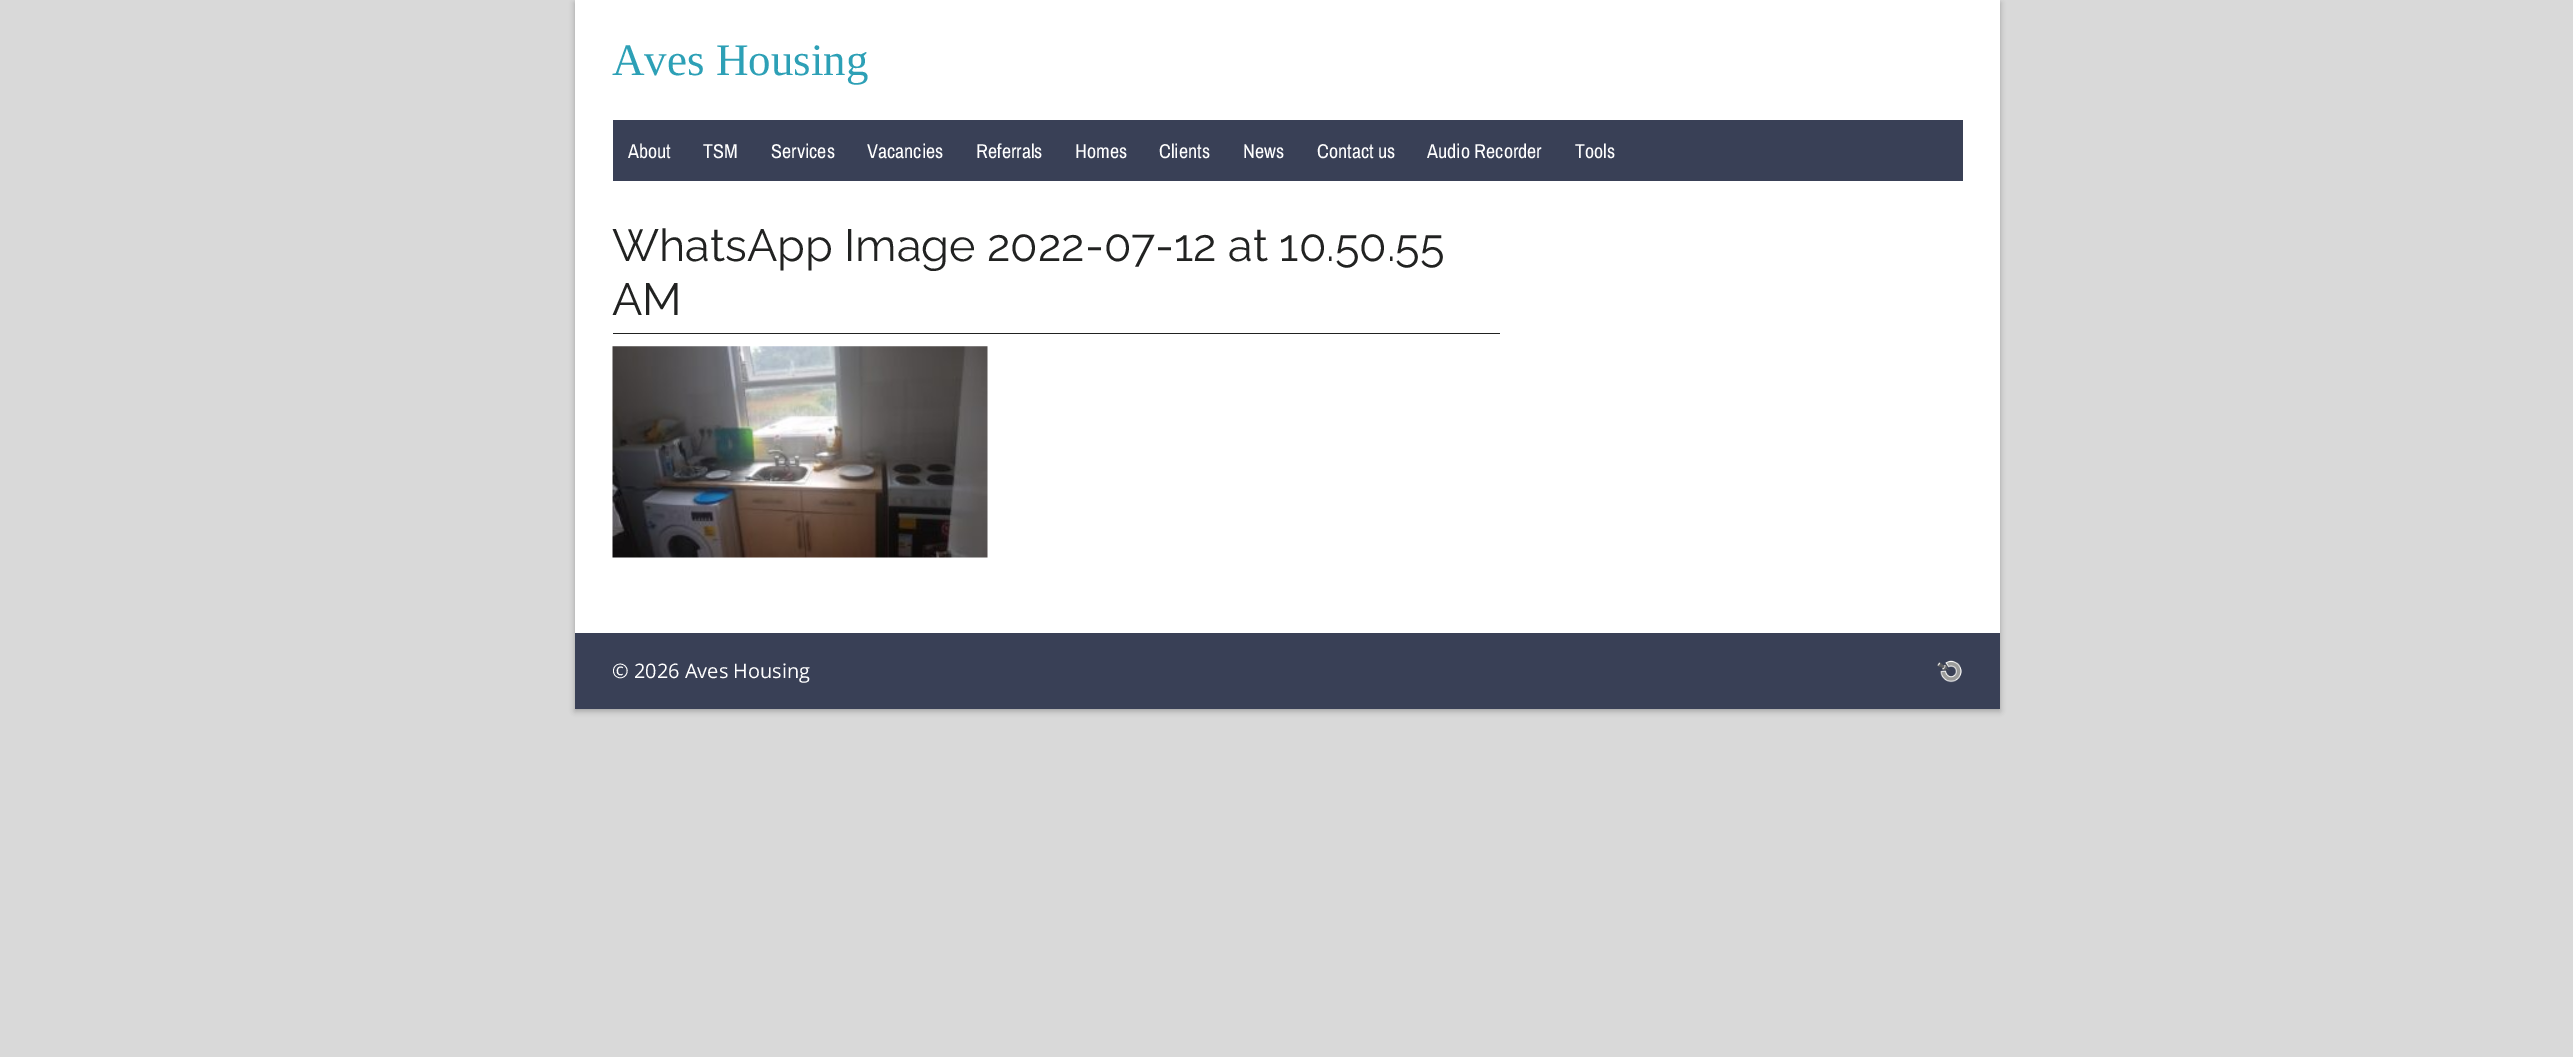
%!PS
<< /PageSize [2573 1057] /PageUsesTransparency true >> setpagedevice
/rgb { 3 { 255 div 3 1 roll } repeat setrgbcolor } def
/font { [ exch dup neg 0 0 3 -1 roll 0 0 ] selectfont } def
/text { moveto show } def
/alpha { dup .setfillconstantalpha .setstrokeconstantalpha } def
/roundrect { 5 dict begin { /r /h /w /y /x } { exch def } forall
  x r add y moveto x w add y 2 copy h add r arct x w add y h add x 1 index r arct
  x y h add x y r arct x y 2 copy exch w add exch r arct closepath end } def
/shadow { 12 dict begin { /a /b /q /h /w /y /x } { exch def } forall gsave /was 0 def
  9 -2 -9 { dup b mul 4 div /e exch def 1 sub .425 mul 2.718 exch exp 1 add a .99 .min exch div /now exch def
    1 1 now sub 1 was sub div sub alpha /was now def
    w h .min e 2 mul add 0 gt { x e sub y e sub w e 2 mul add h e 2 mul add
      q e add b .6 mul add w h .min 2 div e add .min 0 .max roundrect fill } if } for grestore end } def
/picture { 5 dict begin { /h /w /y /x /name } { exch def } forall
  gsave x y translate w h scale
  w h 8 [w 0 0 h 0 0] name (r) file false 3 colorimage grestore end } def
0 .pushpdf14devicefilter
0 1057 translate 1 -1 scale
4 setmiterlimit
217 217 217 rgb
0 0 2573 1057 rectfill
0 0 0 rgb
575 3 1425 708 0 3 0.26 shadow
255 255 255 rgb
575 0 1425 633 rectfill
57 64 86 rgb
613 120 1350 61 rectfill
33 34 33 rgb
613 333 887 1 rectfill
(img_01.rgb) 612 346 376 212 picture
57 64 86 rgb
575 633 1425 76 rectfill
(img_02.rgb) 1937 660 25 23 picture
/LiberationSerif-Regular 45 font
45 160 182 rgb
(Aves Housing) 612 75 text
/ArchivoNarrow-Regular 20 font
255 255 255 rgb
(About) 628 158 text
(TSM) 703 158 text
(Services) 771 158 text
(Vacancies) 867 158 text
(Referrals) 976 158 text
(Homes) 1075 158 text
(Clients) 1159 158 text
(News) 1243 158 text
(Contact us) 1317 158 text
(Audio Recorder) 1427 158 text
(Tools) 1575 158 text
/Raleway-Regular 45 font
33 34 33 rgb
(WhatsApp Image 2022-07-12 at 10.50.55) 612 261 text
(AM) 612 315 text
/OpenSans-Regular 20 font
255 255 255 rgb
(© 2026 Aves Housing) 612 678 text
.poppdf14devicefilter showpage
